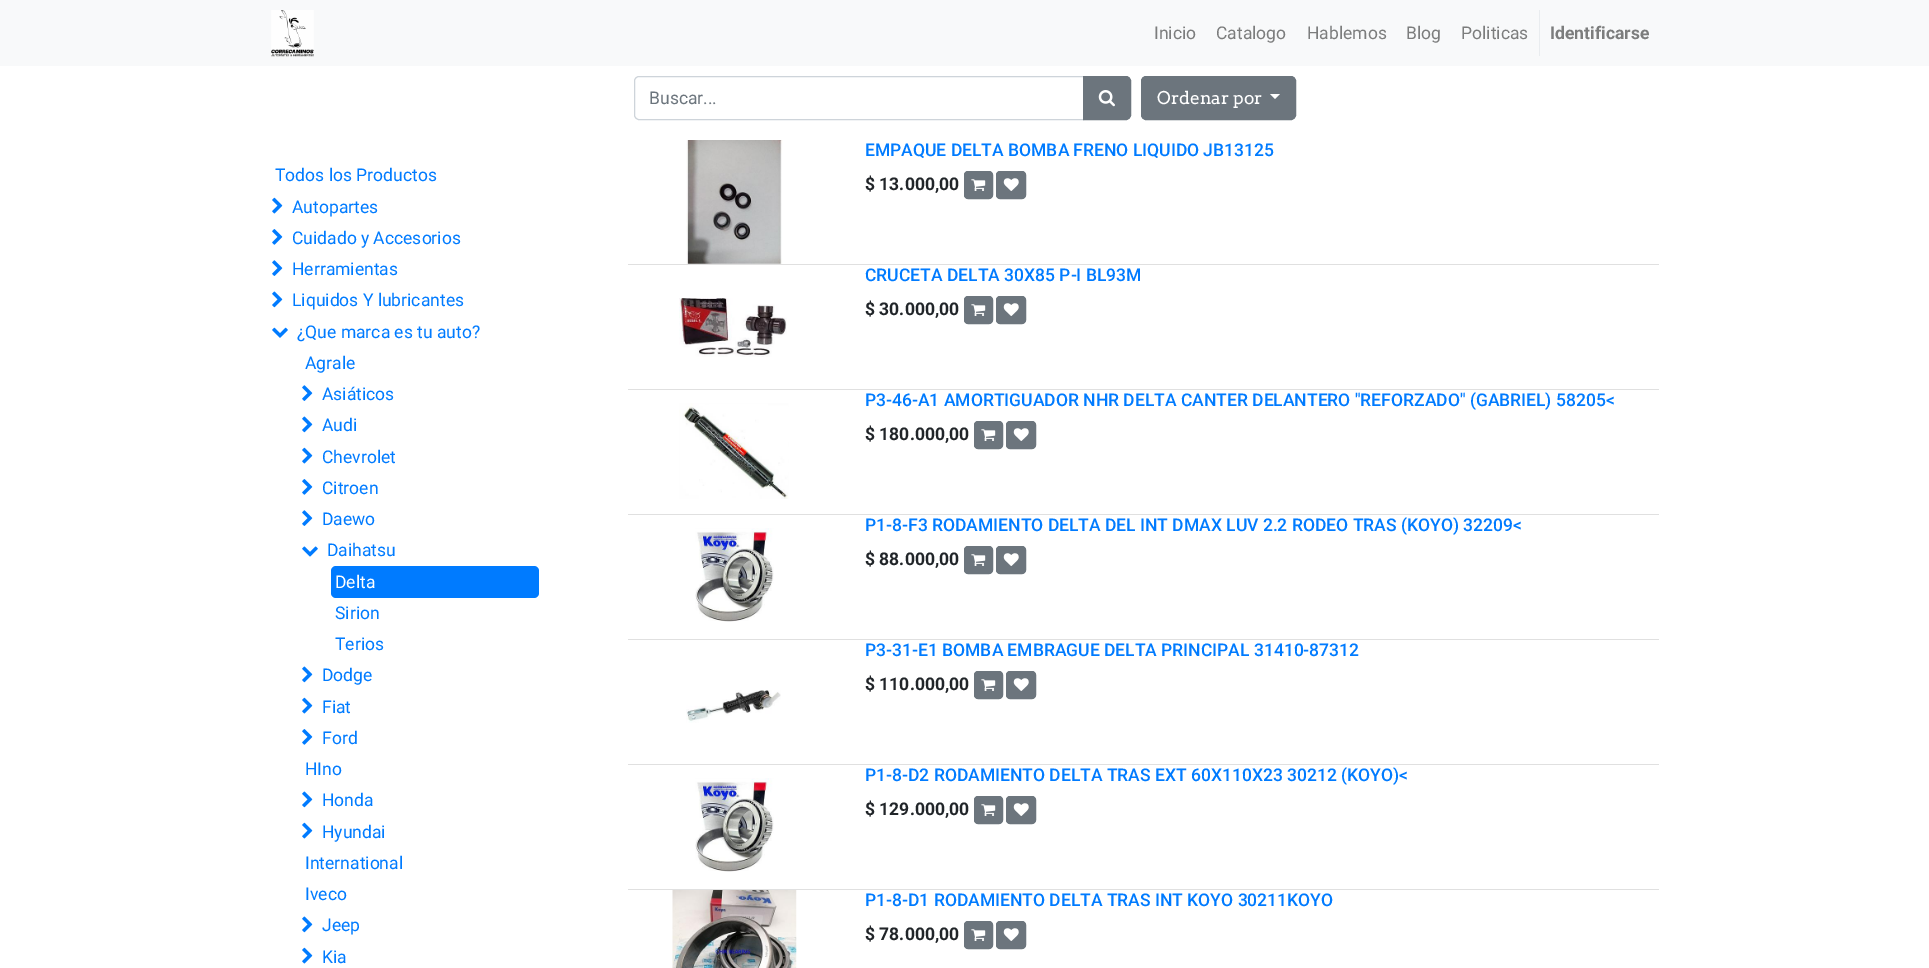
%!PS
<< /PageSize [1929 968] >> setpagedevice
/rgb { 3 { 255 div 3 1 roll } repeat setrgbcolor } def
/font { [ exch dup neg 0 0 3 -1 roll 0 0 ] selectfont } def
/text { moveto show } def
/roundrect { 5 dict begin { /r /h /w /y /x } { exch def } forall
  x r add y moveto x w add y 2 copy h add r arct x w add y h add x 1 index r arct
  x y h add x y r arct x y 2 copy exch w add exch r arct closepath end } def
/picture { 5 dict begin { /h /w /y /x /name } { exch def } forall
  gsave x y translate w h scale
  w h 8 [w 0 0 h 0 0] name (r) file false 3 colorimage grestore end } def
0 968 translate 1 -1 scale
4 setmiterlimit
255 255 255 rgb
0 0 1929 968 rectfill
248 249 250 rgb
0 0 1929 66 rectfill
(img_01.rgb) 271 10 43 47 picture
233 236 239 rgb
1539 10 1 46 rectfill
206 212 218 rgb
639 76.5 moveto 444.5 0 rlineto 0 43 rlineto -444.5 0 rlineto -2.5 0 -4.5 -2 -4.5 -4.5 rcurveto 0 -34 rlineto 0 -2.5 2 -4.5 4.5 -4.5 rcurveto closepath stroke
108 117 125 rgb
1083.5 76.5 moveto 42.5 0 rlineto 2.5 0 4.5 2 4.5 4.5 rcurveto 0 34 rlineto 0 2.5 -2 4.5 -4.5 4.5 rcurveto -42.5 0 rlineto closepath gsave fill grestore
stroke
(img_02.rgb) 1098 90 17 17 picture
1141.5 76.5 154 43 4.5 roundrect gsave fill grestore
stroke
255 255 255 rgb
1270 94 moveto 10 0 rlineto -5 5 rlineto closepath fill
(img_03.rgb) 272 197 11 17 picture
(img_04.rgb) 272 229 11 16 picture
(img_05.rgb) 272 260 11 16 picture
(img_06.rgb) 272 291 11 17 picture
(img_07.rgb) 272 327 16 11 picture
(img_05.rgb) 302 385 11 16 picture
(img_06.rgb) 302 416 11 17 picture
(img_03.rgb) 302 447 11 17 picture
(img_04.rgb) 302 479 11 16 picture
(img_05.rgb) 302 510 11 16 picture
(img_08.rgb) 302 546 16 11 picture
0 123 255 rgb
331 566 208 32 5 roundrect fill
(img_06.rgb) 302 666 11 17 picture
(img_03.rgb) 302 697 11 17 picture
(img_04.rgb) 302 729 11 16 picture
(img_06.rgb) 302 791 11 17 picture
(img_03.rgb) 302 822 11 17 picture
(img_06.rgb) 302 916 11 17 picture
(img_03.rgb) 302 947 11 17 picture
224 224 224 rgb
628 264 1031 1 rectfill
(img_09.rgb) 686 140 97 124 picture
108 117 125 rgb
964.5 171.5 28 27 3.5 roundrect gsave fill grestore
stroke
(img_10.rgb) 971 179 15 12 picture
996.5 171.5 29 27 3.5 roundrect gsave fill grestore
stroke
(img_11.rgb) 1003 178 16 13 picture
224 224 224 rgb
628 389 1031 1 rectfill
(img_12.rgb) 679 298 108 59 picture
108 117 125 rgb
964.5 296.5 28 27 3.5 roundrect gsave fill grestore
stroke
(img_10.rgb) 971 304 15 12 picture
996.5 296.5 29 27 3.5 roundrect gsave fill grestore
stroke
(img_11.rgb) 1003 303 16 13 picture
224 224 224 rgb
628 514 1031 1 rectfill
(img_13.rgb) 679 403 110 96 picture
108 117 125 rgb
974.5 421.5 28 27 3.5 roundrect gsave fill grestore
stroke
(img_10.rgb) 981 429 15 12 picture
1006.5 421.5 29 27 3.5 roundrect gsave fill grestore
stroke
(img_11.rgb) 1013 428 16 13 picture
224 224 224 rgb
628 639 1031 1 rectfill
(img_14.rgb) 695 528 79 94 picture
108 117 125 rgb
964.5 546.5 28 27 3.5 roundrect gsave fill grestore
stroke
(img_10.rgb) 971 554 15 12 picture
996.5 546.5 29 27 3.5 roundrect gsave fill grestore
stroke
(img_11.rgb) 1003 553 16 13 picture
224 224 224 rgb
628 764 1031 1 rectfill
108 117 125 rgb
974.5 671.5 28 27 3.5 roundrect gsave fill grestore
stroke
(img_10.rgb) 981 679 15 12 picture
1006.5 671.5 29 27 3.5 roundrect gsave fill grestore
stroke
(img_11.rgb) 1013 678 16 13 picture
(img_15.rgb) 686 690 95 33 picture
224 224 224 rgb
628 889 1031 1 rectfill
(img_16.rgb) 695 778 79 94 picture
108 117 125 rgb
974.5 796.5 28 27 3.5 roundrect gsave fill grestore
stroke
(img_10.rgb) 981 804 15 12 picture
1006.5 796.5 29 27 3.5 roundrect gsave fill grestore
stroke
(img_11.rgb) 1013 803 16 13 picture
(img_17.rgb) 672 890 125 78 picture
964.5 921.5 28 27 3.5 roundrect gsave fill grestore
stroke
(img_10.rgb) 971 929 15 12 picture
996.5 921.5 29 27 3.5 roundrect gsave fill grestore
stroke
(img_11.rgb) 1003 928 16 13 picture
/Roboto-Regular 17.5 font
124 125 125 rgb
(Inicio) 1154 39 text
(Catalogo) 1216 39 text
(Hablemos) 1307 39 text
(Blog) 1406 39 text
(Politicas) 1461 39 text
/Roboto-Bold 17.5 font
(Identificarse) 1550 39 text
/Roboto-Regular 17.5 font
108 117 125 rgb
(Buscar...) 649 104 text
/Arvo-Regular 17.5 font
255 255 255 rgb
(Ordenar por) 1157 104 text
/Roboto-Regular 17.5 font
0 123 255 rgb
(Todos los Productos) 275 181 text
(Autopartes) 292 213 text
(Cuidado y Accesorios) 292 244 text
(Herramientas) 292 275 text
(Liquidos Y lubricantes) 292 306 text
(¿Que marca es tu auto?) 297 338 text
(Agrale) 305 369 text
(Asiáticos) 322 400 text
(Audi) 322 431 text
(Chevrolet) 322 463 text
(Citroen) 322 494 text
(Daewo) 322 525 text
(Daihatsu) 327 556 text
255 255 255 rgb
(Delta) 335 588 text
0 123 255 rgb
(Sirion) 335 619 text
(Terios) 335 650 text
(Dodge) 322 681 text
(Fiat) 322 713 text
(Ford) 322 744 text
(HIno) 305 775 text
(Honda) 322 806 text
(Hyundai) 322 838 text
(International) 305 869 text
(Iveco) 305 900 text
(Jeep) 322 931 text
(Kia) 322 963 text
/Roboto-Medium 17.5 font
(EMPAQUE DELTA BOMBA FRENO LIQUIDO JB13125) 865 156 text
/Roboto-Bold 17.5 font
33 37 41 rgb
($ 13.000,00) 865 190 text
/Roboto-Medium 17.5 font
0 123 255 rgb
(CRUCETA DELTA 30X85 P-I BL93M) 865 281 text
/Roboto-Bold 17.5 font
33 37 41 rgb
($ 30.000,00) 865 315 text
/Roboto-Medium 17.5 font
0 123 255 rgb
(P3-46-A1 AMORTIGUADOR NHR DELTA CANTER DELANTERO "REFORZADO" \(GABRIEL\) 58205<) 865 406 text
/Roboto-Bold 17.5 font
33 37 41 rgb
($ 180.000,00) 865 440 text
/Roboto-Medium 17.5 font
0 123 255 rgb
(P1-8-F3 RODAMIENTO DELTA DEL INT DMAX LUV 2.2 RODEO TRAS \(KOYO\) 32209<) 865 531 text
/Roboto-Bold 17.5 font
33 37 41 rgb
($ 88.000,00) 865 565 text
/Roboto-Medium 17.5 font
0 123 255 rgb
(P3-31-E1 BOMBA EMBRAGUE DELTA PRINCIPAL 31410-87312) 865 656 text
/Roboto-Bold 17.5 font
33 37 41 rgb
($ 110.000,00) 865 690 text
/Roboto-Medium 17.5 font
0 123 255 rgb
(P1-8-D2 RODAMIENTO DELTA TRAS EXT 60X110X23 30212 \(KOYO\)<) 865 781 text
/Roboto-Bold 17.5 font
33 37 41 rgb
($ 129.000,00) 865 815 text
/Roboto-Medium 17.5 font
0 123 255 rgb
(P1-8-D1 RODAMIENTO DELTA TRAS INT KOYO 30211KOYO) 865 906 text
/Roboto-Bold 17.5 font
33 37 41 rgb
($ 78.000,00) 865 940 text
showpage
